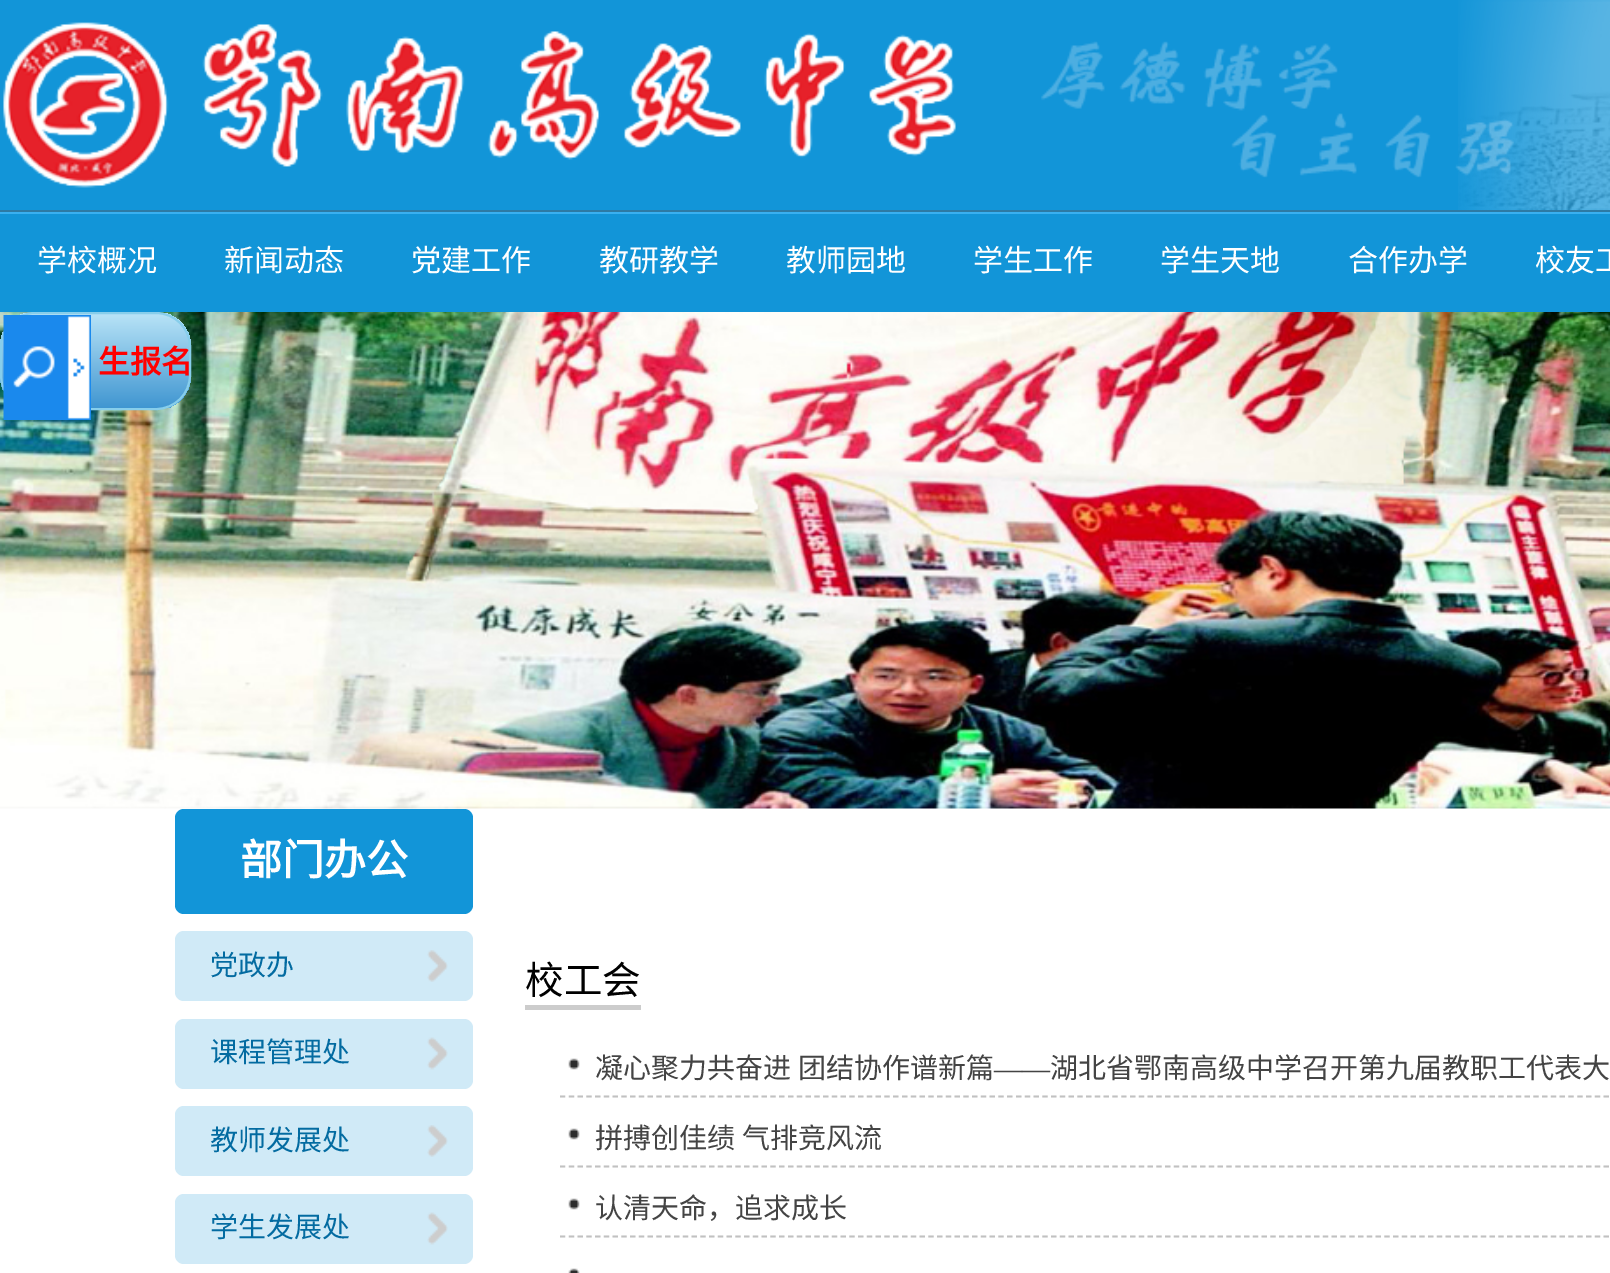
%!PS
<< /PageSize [1610 1273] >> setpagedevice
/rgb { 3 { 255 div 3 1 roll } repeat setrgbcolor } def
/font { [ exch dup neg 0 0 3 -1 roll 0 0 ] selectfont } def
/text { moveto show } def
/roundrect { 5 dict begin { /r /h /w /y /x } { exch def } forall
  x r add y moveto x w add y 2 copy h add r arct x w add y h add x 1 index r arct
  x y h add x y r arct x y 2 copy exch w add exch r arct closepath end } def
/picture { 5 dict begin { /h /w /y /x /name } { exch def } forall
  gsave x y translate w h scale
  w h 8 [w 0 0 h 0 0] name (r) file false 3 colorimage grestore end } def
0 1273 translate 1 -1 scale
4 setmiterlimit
255 255 255 rgb
0 0 1610 1273 rectfill
18 149 216 rgb
0 0 1610 210 rectfill
(img_01.rgb) 3 22 953 166 picture
(img_02.rgb) 1041 41 473 137 picture
(img_03.rgb) 1458 0 152 210 picture
45 122 164 rgb
0 210 1610 2 rectfill
57 176 240 rgb
0 212 1610 2 rectfill
18 149 216 rgb
0 214 1610 98 rectfill
(img_04.rgb) 0 312 1610 497 picture
gsave
0 312 191 98 35 roundrect clip newpath
gsave 0 313 moveto 191 0 rlineto 0 95 rlineto -191 0 rlineto closepath clip newpath
<< /ShadingType 2 /ColorSpace /DeviceRGB /Coords [95 313 95 408] /Extend [true true] /Function << /FunctionType 2 /Domain [0 1] /C0 [0.725 0.894 0.969] /C1 [0.251 0.588 0.82] /N 1 >> >> shfill grestore
grestore
135 206 235 rgb
2 setlinewidth
1 313 189 96 34 roundrect stroke
(img_05.rgb) 3 315 88 105 picture
18 149 216 rgb
175 809 298 105 9 roundrect fill
208 234 247 rgb
175 931 298 70 9 roundrect fill
(img_06.rgb) 427 950 21 32 picture
175 1019 298 70 9 roundrect fill
(img_07.rgb) 427 1037 21 33 picture
175 1106 298 70 9 roundrect fill
(img_06.rgb) 427 1125 21 32 picture
175 1194 298 70 9 roundrect fill
(img_07.rgb) 427 1212 21 33 picture
204 204 204 rgb
525 1005 116 5 rectfill
(img_08.rgb) 568 1058 12 12 picture
193 193 193 rgb
1.8 setlinewidth
[5.25 3.52] 0 setdash
560 1096.5 moveto 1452.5 0 rlineto stroke
(img_08.rgb) 568 1128 12 12 picture
560 1166.5 moveto 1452.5 0 rlineto stroke
(img_08.rgb) 568 1198 12 12 picture
560 1236.5 moveto 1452.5 0 rlineto stroke
(img_09.rgb) 568 1268 12 5 picture
/NotoSansCJKSC-Regular 30 font
255 255 255 rgb
(学校概况) 37 271 text
(新闻动态) 224 271 text
(党建工作) 411 271 text
(教研教学) 599 271 text
(教师园地) 786 271 text
(学生工作) 973 271 text
(学生天地) 1160 271 text
(合作办学) 1348 271 text
(校友工) 1535 271 text
/NotoSansCJKSC-Bold 31.5 font
255 0 0 rgb
(生报名) 98 373 text
/NotoSansCJKSC-Bold 42 font
255 255 255 rgb
(部门办公) 240 875 text
/NotoSansCJKSC-Regular 28 font
3 107 161 rgb
(党政办) 210 975 text
(课程管理处) 210 1062 text
(教师发展处) 210 1150 text
(学生发展处) 210 1237 text
/NotoSansCJKSC-Regular 38.5 font
0 0 0 rgb
(校工会) 525 994 text
/NotoSansCJKSC-Regular 28 font
68 68 68 rgb
595 1078 moveto 1 0 32 (凝心聚力共奋进 团结协作谱新篇) widthshow
/LiberationSerif-Regular 28 font
(——) 994 1078 text
/NotoSansCJKSC-Regular 28 font
(湖北省鄂南高级中学召开第九届教职工代表大) 1050 1078 text
(拼搏创佳绩) 595 1148 text
(气排竞风流) 742 1148 text
(认清天命，追求成长) 595 1218 text
showpage
